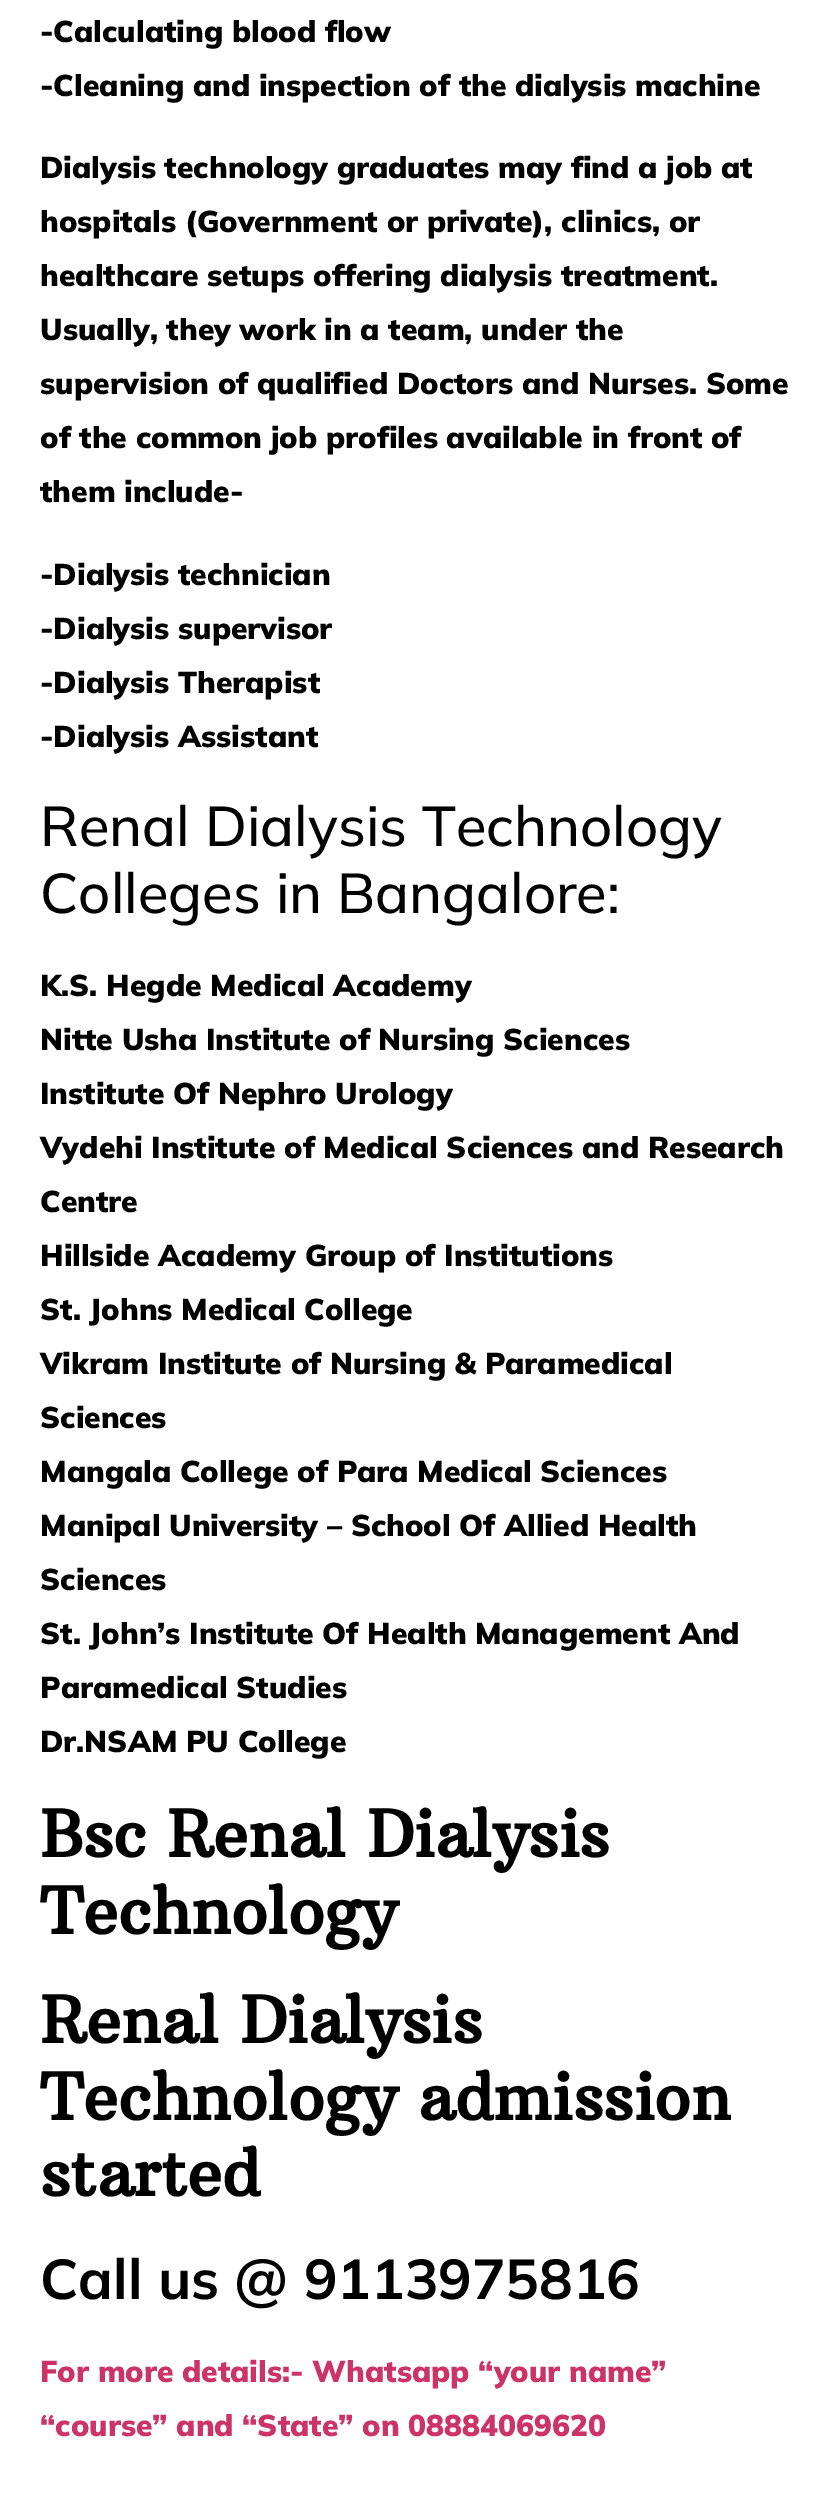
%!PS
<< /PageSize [835 2501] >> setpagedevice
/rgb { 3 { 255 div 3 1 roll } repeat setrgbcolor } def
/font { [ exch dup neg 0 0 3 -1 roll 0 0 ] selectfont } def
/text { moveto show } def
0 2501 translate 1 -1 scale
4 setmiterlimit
255 255 255 rgb
0 0 835 2501 rectfill
/Mulish-Black 30 font
0 0 0 rgb
(-Calculating blood flow) 40 42 text
(-Cleaning and inspection of the dialysis machine) 40 96 text
(Dialysis technology graduates may find a job at) 40 178 text
(hospitals \(Government or private\), clinics, or) 40 232 text
(healthcare setups offering dialysis treatment.) 40 286 text
(Usually, they work in a team, under the) 40 340 text
(supervision of qualified Doctors and Nurses. Some) 40 394 text
(of the common job profiles available in front of) 40 448 text
(them include-) 40 502 text
(-Dialysis technician) 40 585 text
(-Dialysis supervisor) 40 639 text
(-Dialysis Therapist) 40 693 text
(-Dialysis Assistant) 40 747 text
/Mulish-Medium 56 font
(Renal Dialysis Technology) 40 846 text
(Colleges in Bangalore:) 40 913 text
/Mulish-Black 30 font
(K.S. Hegde Medical Academy) 40 996 text
(Nitte Usha Institute of Nursing Sciences) 40 1050 text
(Institute Of Nephro Urology) 40 1104 text
(Vydehi Institute of Medical Sciences and Research) 40 1158 text
(Centre) 40 1212 text
(Hillside Academy Group of Institutions) 40 1266 text
(St. Johns Medical College) 40 1320 text
(Vikram Institute of Nursing & Paramedical) 40 1374 text
(Sciences) 40 1428 text
(Mangala College of Para Medical Sciences) 40 1482 text
(Manipal University – School Of Allied Health) 40 1536 text
(Sciences) 40 1590 text
(St. John’s Institute Of Health Management And) 40 1644 text
(Paramedical Studies) 40 1698 text
(Dr.NSAM PU College) 40 1752 text
/ArbutusSlab-Bold 64 font
(Bsc Renal Dialysis) 40 1857 text
(Technology) 40 1934 text
(Renal Dialysis) 40 2043 text
(Technology admission) 40 2120 text
(started) 40 2196 text
/Mulish-Bold 56 font
(Call us @ 9113975816) 40 2299 text
/Mulish-Black 30 font
204 51 102 rgb
(For more details:- Whatsapp “your name”) 40 2382 text
(“course” and “State” on 08884069620) 40 2436 text
showpage
